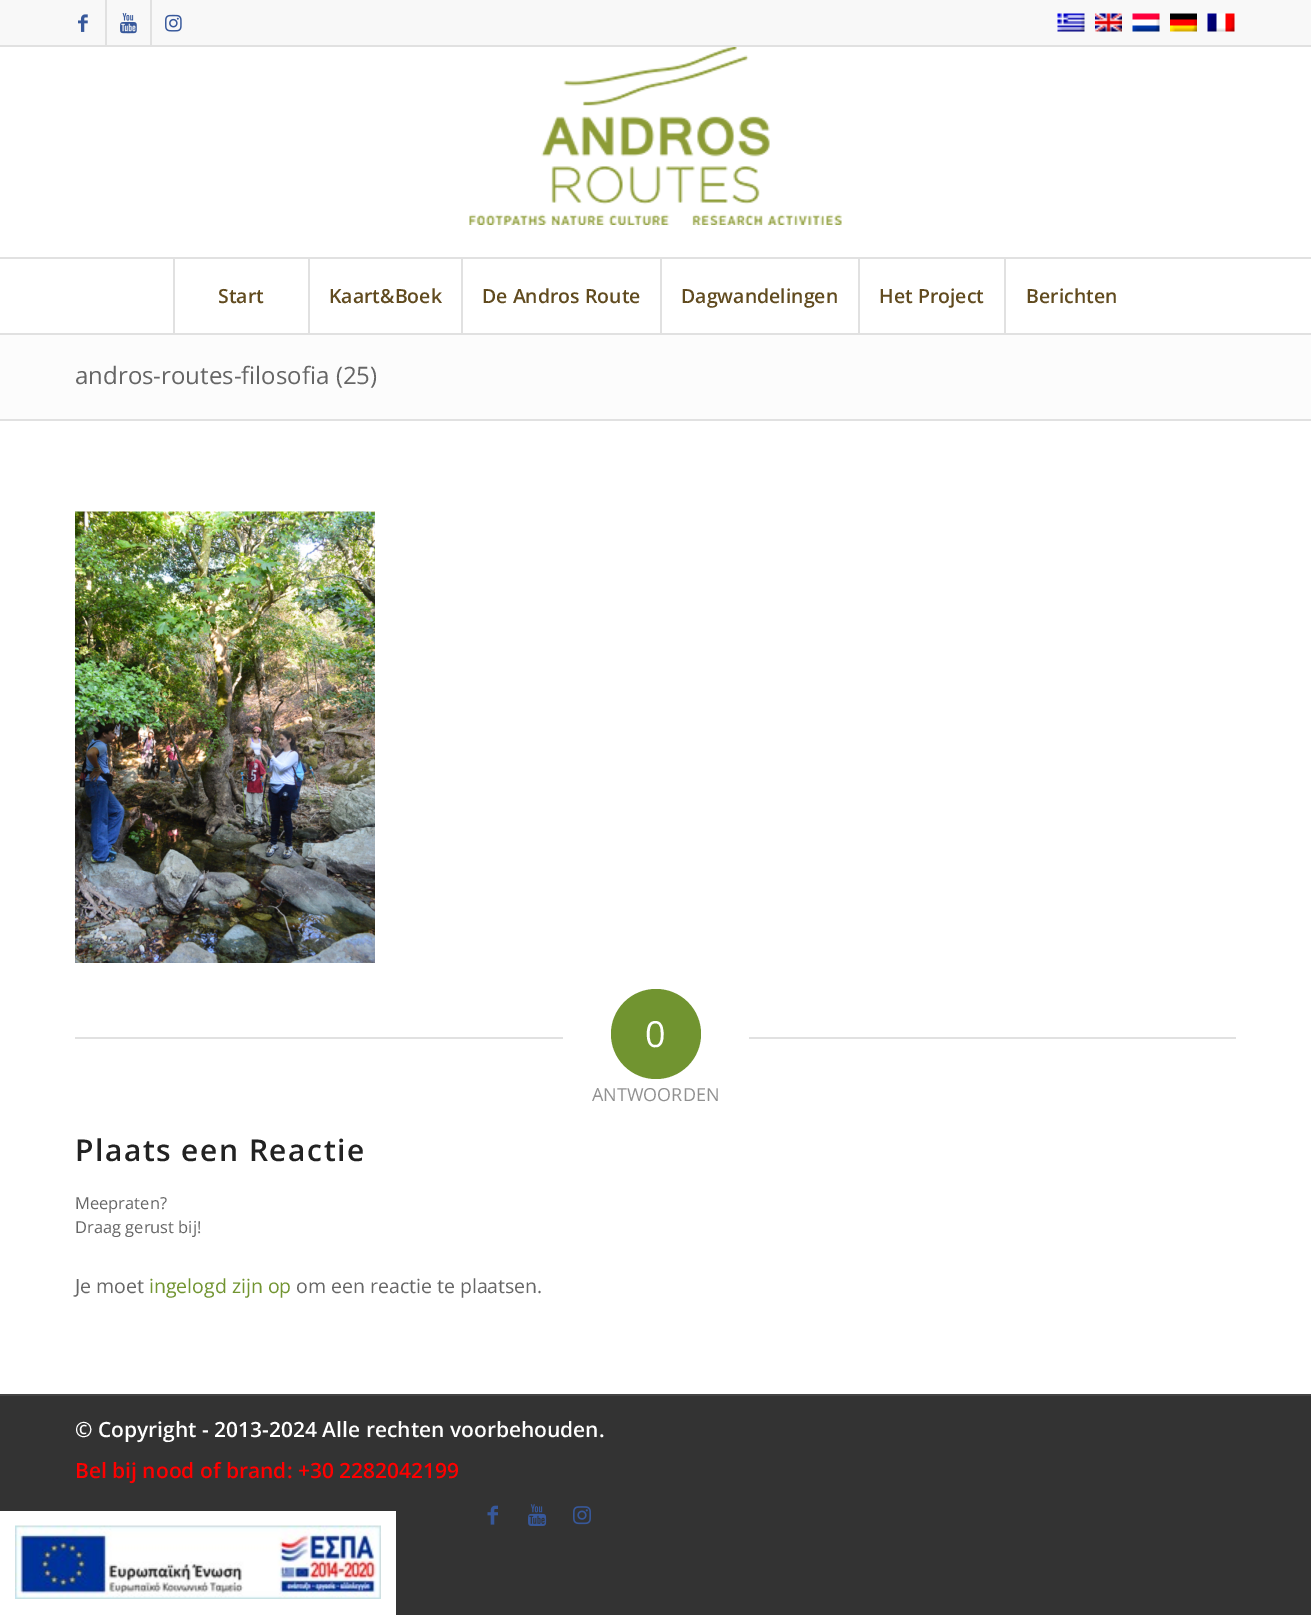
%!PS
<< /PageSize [1311 1615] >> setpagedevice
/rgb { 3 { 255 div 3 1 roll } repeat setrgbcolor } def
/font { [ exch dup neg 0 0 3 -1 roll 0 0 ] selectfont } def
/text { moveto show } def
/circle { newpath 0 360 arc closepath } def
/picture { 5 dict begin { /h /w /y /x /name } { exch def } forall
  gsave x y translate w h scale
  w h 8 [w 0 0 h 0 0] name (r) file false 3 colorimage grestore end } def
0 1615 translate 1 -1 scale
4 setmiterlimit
51 51 51 rgb
0 0 1311 1615 rectfill
248 248 248 rgb
0 0 1311 45 rectfill
225 225 225 rgb
0 45 1311 2 rectfill
105 0 2 45 rectfill
(img_01.rgb) 78 14 10 18 picture
150 0 2 45 rectfill
(img_02.rgb) 120 13 17 21 picture
(img_03.rgb) 165 14 17 18 picture
(img_04.rgb) 1057 13 28 19 picture
(img_05.rgb) 1095 13 27 19 picture
(img_06.rgb) 1132 13 28 19 picture
(img_07.rgb) 1170 13 27 19 picture
(img_08.rgb) 1207 13 28 19 picture
255 255 255 rgb
0 1511 396 104 rectfill
(img_09.rgb) 15 1525 366 74 picture
0 47 1311 286 rectfill
225 225 225 rgb
0 333 1311 2 rectfill
(img_10.rgb) 469 47 373 178 picture
0 257 1311 2 rectfill
173 258 2 75 rectfill
308 258 2 75 rectfill
461 258 2 75 rectfill
660 258 2 75 rectfill
858 258 2 75 rectfill
1004 258 2 75 rectfill
255 255 255 rgb
0 421 1311 973 rectfill
252 252 252 rgb
0 335 1311 84 rectfill
225 225 225 rgb
0 419 1311 2 rectfill
(img_11.rgb) 75 511 300 452 picture
75 1037 488 2 rectfill
113 148 48 rgb
656 1034 45 circle fill
225 225 225 rgb
749 1037 487 2 rectfill
68 68 68 rgb
0 1394 1311 2 rectfill
(img_12.rgb) 487 1505 11 20 picture
(img_13.rgb) 528 1504 19 22 picture
(img_14.rgb) 573 1506 18 19 picture
/OpenSans-SemiBold 19.5 font
97 75 31 rgb
(Start) 218 303 text
(Kaart&Boek) 329 303 text
(De Andros Route) 482 303 text
(Dagwandelingen) 681 303 text
(Het Project) 879 303 text
(Berichten) 1026 303 text
/OpenSans-Regular 24 font
102 102 102 rgb
(andros-routes-filosofia \(25\)) 75 384 text
/OpenSans-Regular 36 font
255 255 255 rgb
(0) 645 1047 text
/OpenSans-Regular 18 font
145 145 145 rgb
(ANTWOORDEN) 592 1101 text
/OpenSans-SemiBold 30 font
34 34 34 rgb
75 1161 moveto 1.5 0 (Plaats een Reactie) ashow
/OpenSans-Regular 16.5 font
102 102 102 rgb
(Meepraten?) 75 1209 text
(Draag gerust bij!) 75 1233 text
/OpenSans-Regular 19.5 font
(Je moet) 75 1293 text
113 148 48 rgb
(ingelogd zijn op) 149 1293 text
102 102 102 rgb
(om een reactie te plaatsen.) 296 1293 text
/OpenSans-SemiBold 21 font
255 255 255 rgb
(© Copyright - 2013-2024 Alle rechten voorbehouden.) 75 1437 text
255 0 0 rgb
(Bel bij nood of brand: +30 2282042199) 75 1478 text
showpage
